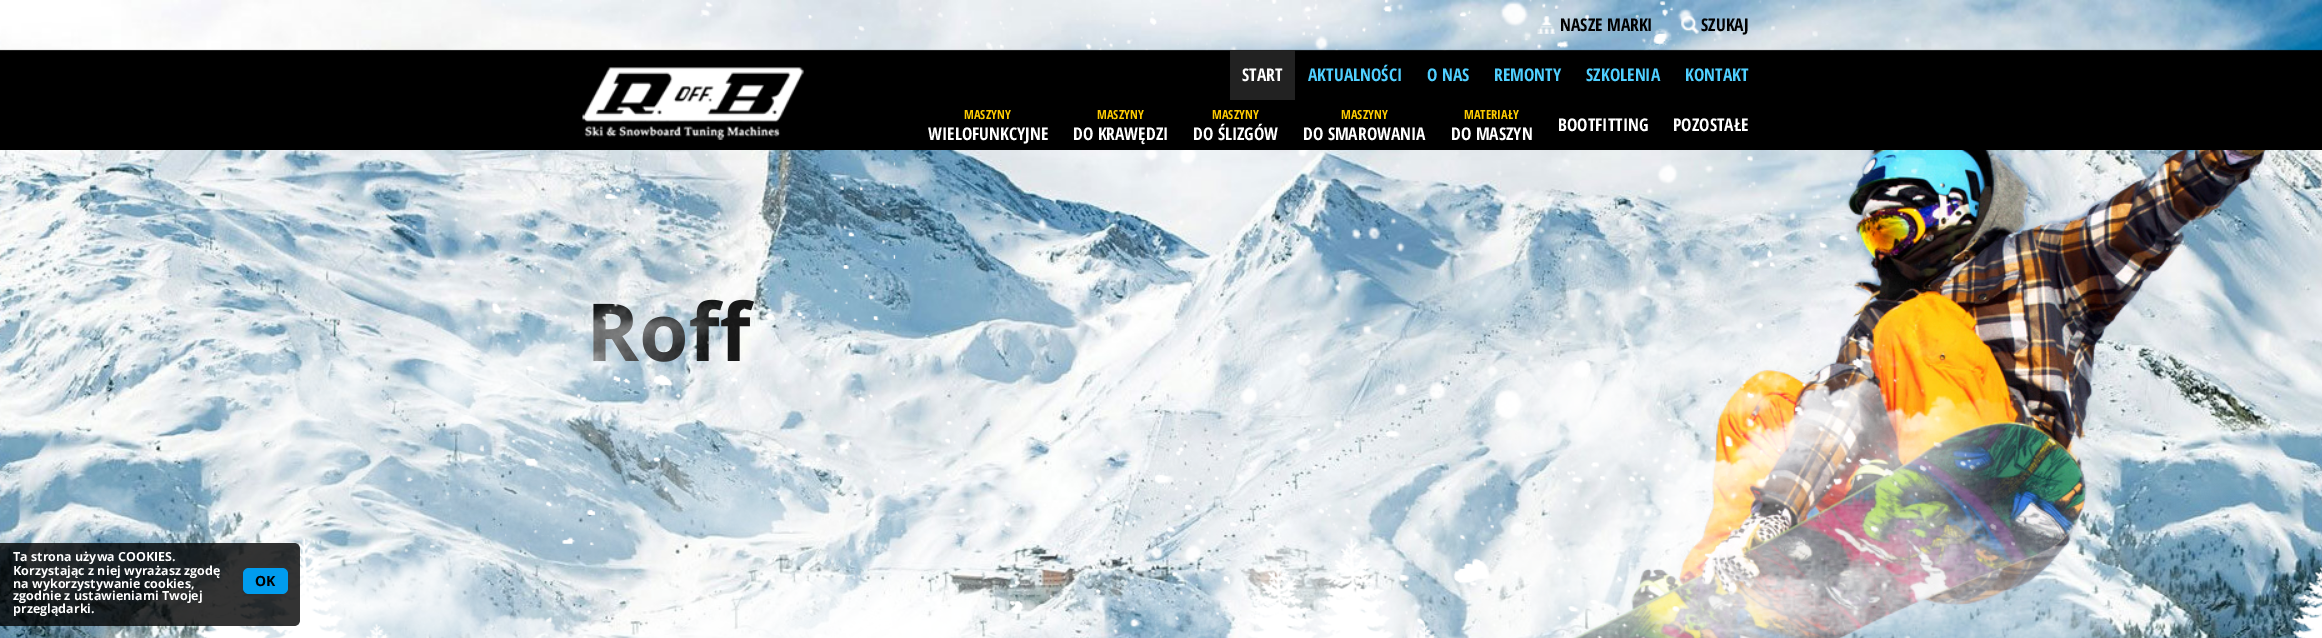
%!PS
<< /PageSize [2322 638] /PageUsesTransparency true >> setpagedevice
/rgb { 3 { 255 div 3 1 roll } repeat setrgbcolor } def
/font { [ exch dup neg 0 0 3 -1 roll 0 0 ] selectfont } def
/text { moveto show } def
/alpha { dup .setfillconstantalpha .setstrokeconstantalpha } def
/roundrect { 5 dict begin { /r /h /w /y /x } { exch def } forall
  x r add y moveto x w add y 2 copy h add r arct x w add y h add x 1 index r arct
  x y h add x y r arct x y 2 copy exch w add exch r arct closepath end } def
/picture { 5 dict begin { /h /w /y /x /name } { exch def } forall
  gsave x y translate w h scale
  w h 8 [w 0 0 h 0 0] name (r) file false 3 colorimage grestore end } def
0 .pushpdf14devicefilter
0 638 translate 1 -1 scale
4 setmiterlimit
255 255 255 rgb
0 0 2322 638 rectfill
(img_05.rgb) 0 0 2322 638 picture
(img_08.rgb) 1571 150 739 488 picture
/OpenSans-Bold 80 font
19 21 22 rgb
(R) 586 361 text
(o) 639 361 text
(f) 689 361 text
(f) 720 361 text
(img_07.rgb) 1 264 2265 374 picture
(img_06.rgb) 279 0 1737 638 picture
(img_01.rgb) 0 49 2322 101 picture
/OpenSansCondensed-Bold 17.5 font
255 255 255 rgb
(POZOSTAŁE) 1673 131 text
(BOOTFITTING) 1558 131 text
(DO MASZYN) 1451 140 text
/OpenSansCondensed-Bold 12.5 font
255 204 0 rgb
(MATERIAŁY) 1464 119 text
/OpenSansCondensed-Bold 17.5 font
255 255 255 rgb
(DO SMAROWANIA) 1303 140 text
/OpenSansCondensed-Bold 12.5 font
255 204 0 rgb
(MASZYNY) 1341 119 text
/OpenSansCondensed-Bold 17.5 font
255 255 255 rgb
(DO ŚLIZGÓW) 1193 140 text
/OpenSansCondensed-Bold 12.5 font
255 204 0 rgb
(MASZYNY) 1212 119 text
/OpenSansCondensed-Bold 17.5 font
255 255 255 rgb
(DO KRAWĘDZI) 1073 140 text
/OpenSansCondensed-Bold 12.5 font
255 204 0 rgb
(MASZYNY) 1097 119 text
/OpenSansCondensed-Bold 17.5 font
255 255 255 rgb
(WIELOFUNKCYJNE) 928 140 text
/OpenSansCondensed-Bold 12.5 font
255 204 0 rgb
(MASZYNY) 964 119 text
/OpenSansCondensed-Bold 17.5 font
79 207 255 rgb
(KONTAKT) 1685 81 text
(SZKOLENIA) 1586 81 text
(REMONTY) 1494 81 text
(O NAS) 1427 81 text
(AKTUALNOŚCI) 1308 81 text
34 34 34 rgb
1230 50 65 50 rectfill
255 255 255 rgb
(START) 1242 81 text
0 0 0 rgb
(NASZE MARKI) 1560 31 text
(img_03.rgb) 1537 16 18 18 picture
(SZUKAJ) 1701 31 text
(img_04.rgb) 1681 16 18 18 picture
(img_02.rgb) 582 67 222 73 picture
(img_09.rgb) 198 537 2124 101 picture
0.8 alpha
0 543 moveto 294 0 rlineto 3.5 0 6 2.5 6 6 rcurveto 0 71 rlineto 0 3.5 -2.5 6 -6 6 rcurveto -294 0 rlineto closepath fill
/OpenSans-Bold 12.5 font
1 alpha
255 255 255 rgb
(Ta strona używa COOKIES.) 13 561 text
(Korzystając z niej wyrażasz zgodę) 13 575 text
(na wykorzystywanie cookies,) 13 588 text
(zgodnie z ustawieniami Twojej) 13 600 text
(przeglądarki.) 13 613 text
0 156 238 rgb
243 568 45 26 6 roundrect fill
/OpenSans-Bold 14 font
0 0 0 rgb
(OK) 255 586 text
.poppdf14devicefilter showpage
